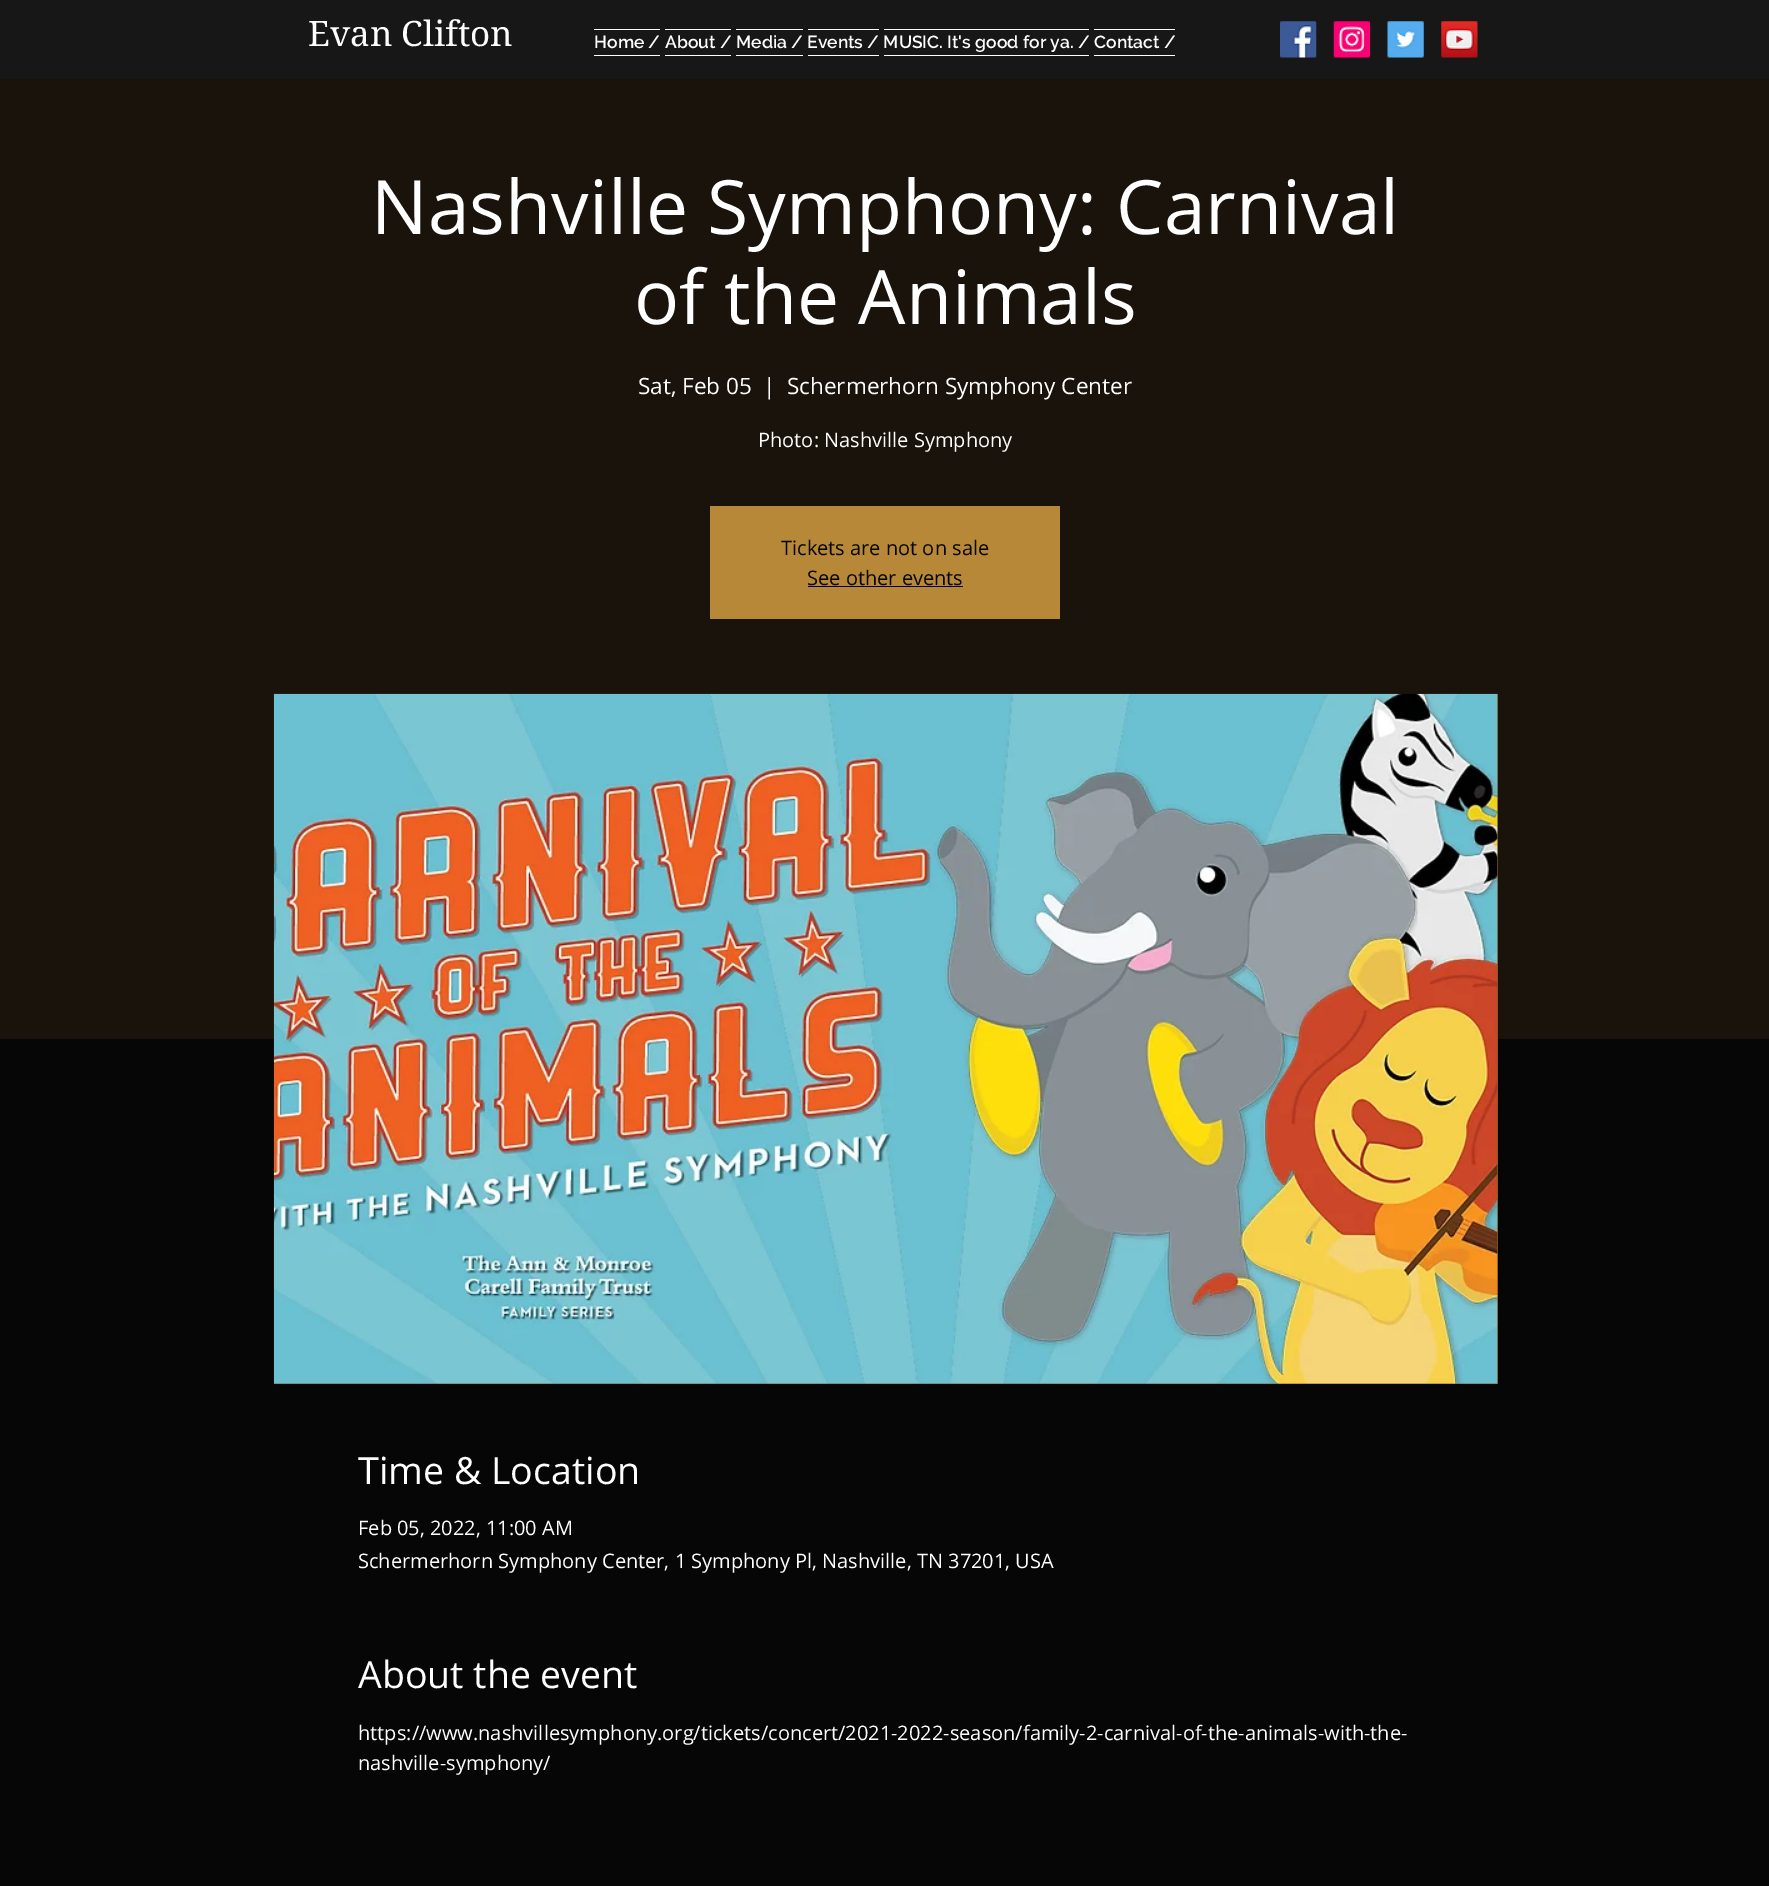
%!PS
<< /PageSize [1769 1886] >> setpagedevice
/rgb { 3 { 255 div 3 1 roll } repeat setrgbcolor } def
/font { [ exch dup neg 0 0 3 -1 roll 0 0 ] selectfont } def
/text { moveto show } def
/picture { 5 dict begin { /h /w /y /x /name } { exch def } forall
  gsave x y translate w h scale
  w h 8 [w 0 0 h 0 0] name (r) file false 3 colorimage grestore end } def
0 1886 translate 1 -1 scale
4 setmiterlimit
7 6 6 rgb
0 0 1769 1886 rectfill
24 23 23 rgb
0 0 1769 79 rectfill
255 255 255 rgb
594 29 66 1 rectfill
594 55 66 1 rectfill
665 29 66 1 rectfill
665 55 66 1 rectfill
808 29 71 1 rectfill
808 55 71 1 rectfill
884 29 205 1 rectfill
884 55 205 1 rectfill
736 29 67 1 rectfill
736 55 67 1 rectfill
1094 29 81 1 rectfill
1094 55 81 1 rectfill
(img_01.rgb) 1280 21 37 37 picture
(img_02.rgb) 1333 21 37 37 picture
(img_03.rgb) 1387 21 37 37 picture
(img_04.rgb) 1441 21 37 37 picture
25 19 11 rgb
0 79 1769 960 rectfill
183 136 55 rgb
710 506 350 113 rectfill
7 6 6 rgb
808 586 155 1 rectfill
122 90 36 rgb
274 694 1224 690 rectfill
(img_05.rgb) 273 693 1225 691 picture
/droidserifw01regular-Regular 35 font
255 255 255 rgb
(Evan Clifton) 308 46 text
/Raleway-SemiBold 17.5 font
(Home /) 594 48 text
(About /) 665 48 text
(Media / Events / MUSIC. It's good for ya. /) 736 48 text
(Contact /) 1094 48 text
/OpenSans-Regular 75 font
(Nashville Symphony: Carnival) 371 234 text
(of the Animals) 634 324 text
/OpenSans-Regular 22.5 font
(Sat, Feb 05) 638 394 text
(|) 763 394 text
(Schermerhorn Symphony Center) 787 394 text
/OpenSans-Regular 20 font
(Photo: Nashville Symphony) 758 447 text
7 6 6 rgb
(Tickets are not on sale) 781 555 text
(See other events) 807 585 text
/OpenSans-Regular 37.5 font
255 255 255 rgb
(Time & Location) 358 1484 text
/OpenSans-Regular 20 font
(Feb 05, 2022, 11:00 AM) 358 1535 text
(Schermerhorn Symphony Center, 1 Symphony Pl, Nashville, TN 37201, USA) 358 1568 text
/OpenSans-Regular 37.5 font
(About the event) 358 1688 text
/OpenSans-Regular 20 font
(https://www.nashvillesymphony.org/tickets/concert/2021-2022-season/family-2-carnival-of-the-animals-with-the-) 358 1740 text
(nashville-symphony/) 358 1770 text
showpage
